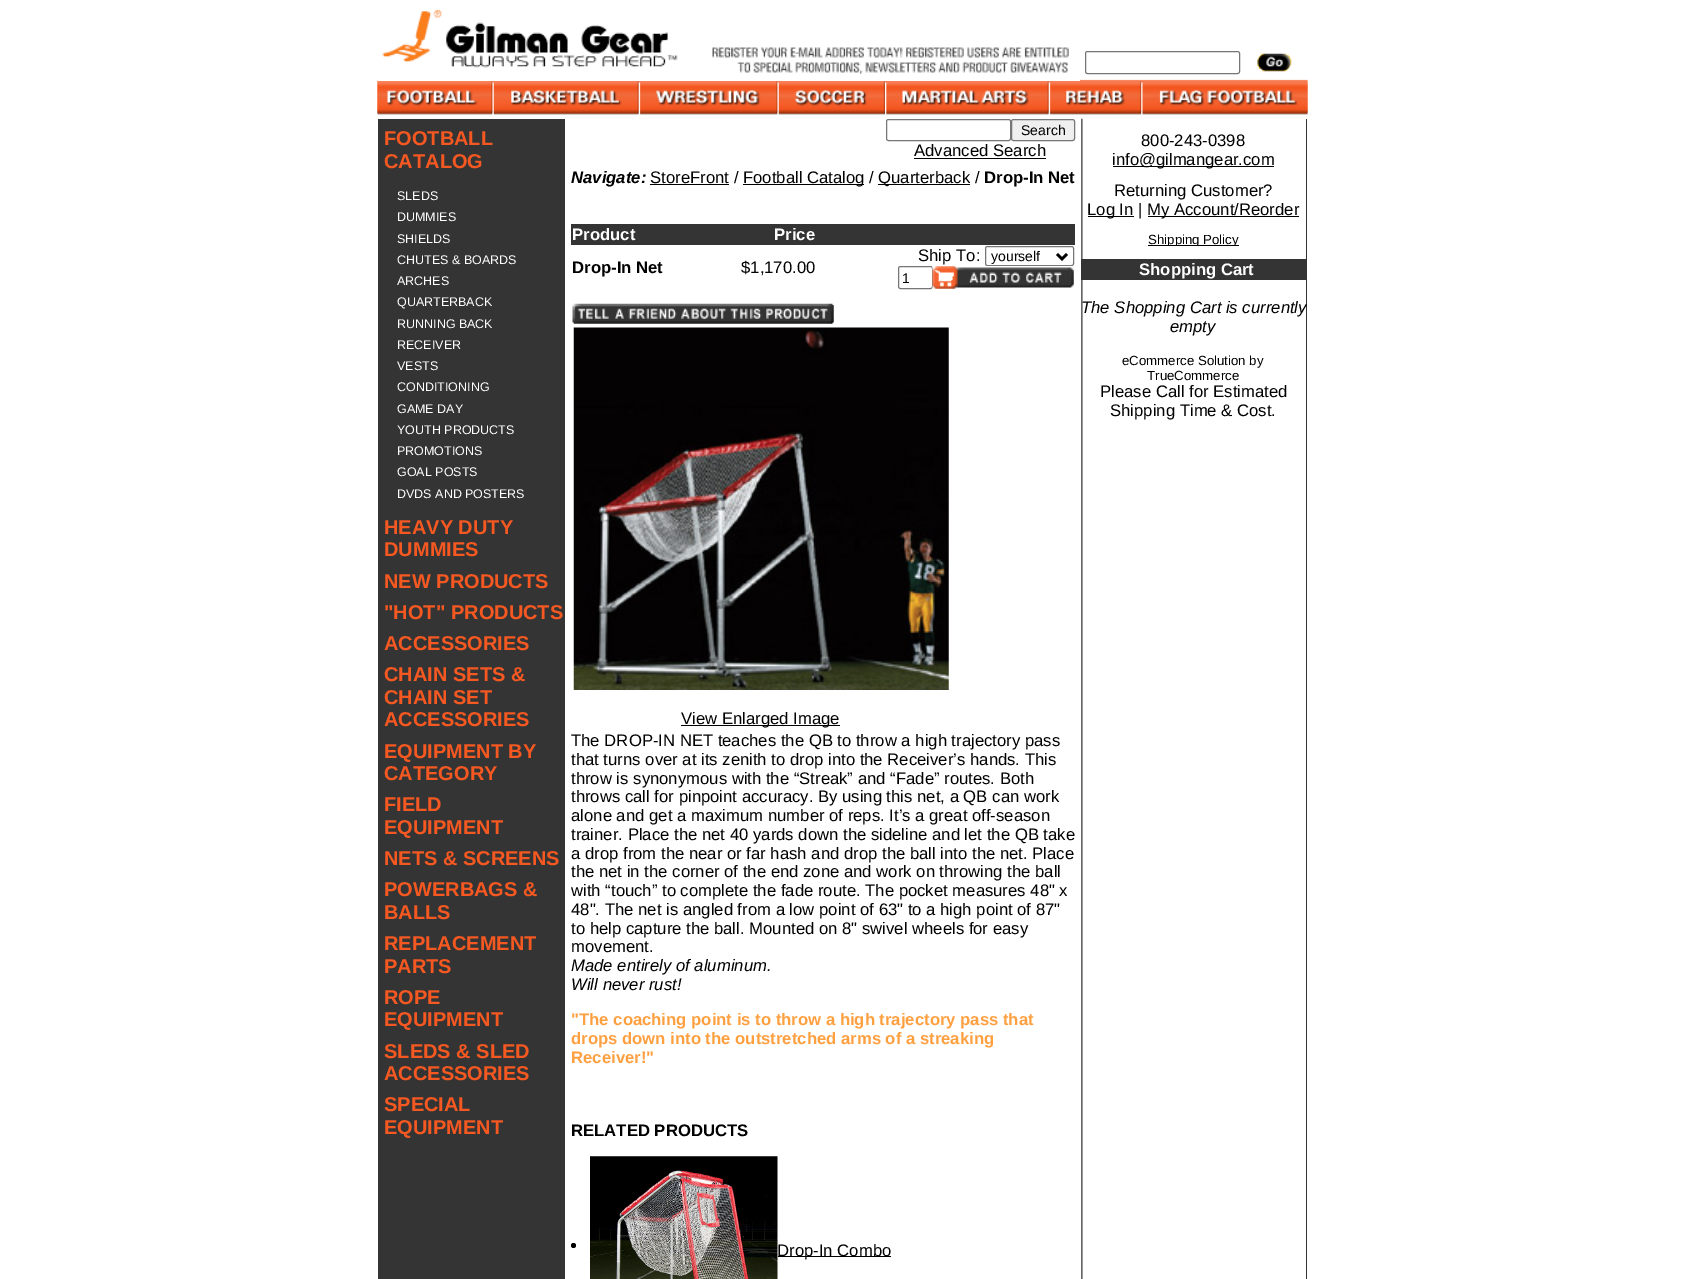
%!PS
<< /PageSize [1683 1279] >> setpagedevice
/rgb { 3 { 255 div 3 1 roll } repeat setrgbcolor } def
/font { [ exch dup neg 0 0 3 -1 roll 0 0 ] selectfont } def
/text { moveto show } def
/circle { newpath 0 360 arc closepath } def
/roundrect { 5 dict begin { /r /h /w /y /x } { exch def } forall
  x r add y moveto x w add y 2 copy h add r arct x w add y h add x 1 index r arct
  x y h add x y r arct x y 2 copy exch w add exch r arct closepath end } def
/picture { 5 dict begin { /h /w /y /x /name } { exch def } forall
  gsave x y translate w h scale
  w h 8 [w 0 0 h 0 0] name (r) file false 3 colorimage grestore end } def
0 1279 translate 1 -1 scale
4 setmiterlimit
255 255 255 rgb
0 0 1683 1279 rectfill
(img_01.rgb) 377 79 931 35 picture
(img_02.rgb) 377 9 703 73 picture
118 118 118 rgb
1085.5 51.5 154 22 2 roundrect stroke
(img_03.rgb) 1257 53 35 19 picture
(img_04.rgb) 377 81 116 34 picture
(img_05.rgb) 492 81 147 34 picture
(img_06.rgb) 638 81 140 34 picture
(img_07.rgb) 777 81 108 34 picture
(img_08.rgb) 885 81 164 34 picture
(img_09.rgb) 1048 81 94 34 picture
(img_10.rgb) 1141 81 167 34 picture
51 51 51 rgb
1306 119 1 1160 rectfill
52 52 52 rgb
378 119 187 1160 rectfill
118 118 118 rgb
886.5 119.5 124 21 2 roundrect stroke
239 239 239 rgb
1011.5 119.5 63 21 2 roundrect gsave fill grestore
118 118 118 rgb
stroke
0 0 0 rgb
914 158 132 1 rectfill
650 184 79 1 rectfill
743 184 121 1 rectfill
878 184 92 1 rectfill
52 52 52 rgb
571 224 504 21 rectfill
118 118 118 rgb
985.5 246.5 88 19 2 roundrect stroke
0 0 0 rgb
2.5 setlinewidth
1057 254 moveto 5 5 rlineto 5 -5 rlineto stroke
118 118 118 rgb
1 setlinewidth
898.5 266.5 34 22 2 roundrect stroke
(img_11.rgb) 932 266 142 23 picture
(img_12.rgb) 572 303 262 21 picture
(img_13.rgb) 573 327 376 363 picture
0 0 0 rgb
681 725 159 1 rectfill
573.5 1245.5 2.5 circle fill
(img_14.rgb) 590 1156 188 123 picture
778 1256 113 1 rectfill
(img_15.rgb) 1081 118 2 1161 picture
1113 166 161 1 rectfill
1088 216 46 1 rectfill
1148 216 151 1 rectfill
1148 245 91 1 rectfill
52 52 52 rgb
1081 259 225 21 rectfill
/LiberationSans-Bold 20 font
245 88 33 rgb
(FOOTBALL) 384 145 text
(CATALOG) 384 168 text
/LiberationSans-Regular 12.5 font
255 255 255 rgb
(SLEDS) 397 200 text
(DUMMIES) 397 221 text
(SHIELDS) 397 243 text
(CHUTES & BOARDS) 397 264 text
(ARCHES) 397 285 text
(QUARTERBACK) 397 306 text
(RUNNING BACK) 397 328 text
(RECEIVER) 397 349 text
(VESTS) 397 370 text
(CONDITIONING) 397 391 text
(GAME DAY) 397 413 text
(YOUTH PRODUCTS) 397 434 text
(PROMOTIONS) 397 455 text
(GOAL POSTS) 397 476 text
(DVDS AND POSTERS) 397 498 text
/LiberationSans-Bold 20 font
245 88 33 rgb
(HEAVY DUTY) 384 534 text
(DUMMIES) 384 556 text
(NEW PRODUCTS) 384 588 text
("HOT" PRODUCTS) 384 619 text
(ACCESSORIES) 384 650 text
(CHAIN SETS &) 384 681 text
(CHAIN SET) 384 704 text
(ACCESSORIES) 384 726 text
(EQUIPMENT BY) 384 758 text
(CATEGORY) 384 780 text
(FIELD) 384 811 text
(EQUIPMENT) 384 834 text
(NETS & SCREENS) 384 865 text
(POWERBAGS &) 384 896 text
(BALLS) 384 919 text
(REPLACEMENT) 384 950 text
(PARTS) 384 973 text
(ROPE) 384 1004 text
(EQUIPMENT) 384 1026 text
(SLEDS & SLED) 384 1058 text
(ACCESSORIES) 384 1080 text
(SPECIAL) 384 1111 text
(EQUIPMENT) 384 1134 text
/LiberationSans-Regular 14 font
0 0 0 rgb
(Search) 1021 135 text
/LiberationSans-Regular 16.7 font
(Advanced Search) 914 156 text
/LiberationSans-BoldItalic 16.7 font
(Navigate:) 571 183 text
/LiberationSans-Regular 16.7 font
(StoreFront /) 650 183 text
(Football Catalog /) 743 183 text
(Quarterback /) 878 183 text
/LiberationSans-Bold 16.7 font
(Drop-In Net) 984 183 text
255 255 255 rgb
(Product) 572 240 text
(Price) 774 240 text
0 0 0 rgb
(Drop-In Net) 572 273 text
/LiberationSans-Regular 16.7 font
($1,170.00) 741 273 text
(Ship To:) 918 261 text
/LiberationSans-Regular 14 font
(yourself) 991 261 text
(1) 902 283 text
/LiberationSans-Regular 16.7 font
(View Enlarged Image) 681 724 text
(The DROP-IN NET teaches the QB to throw a high trajectory pass) 571 746 text
(that turns over at its zenith to drop into the Receiver’s hands. This) 571 765 text
(throw is synonymous with the “Streak” and “Fade” routes. Both) 571 784 text
(throws call for pinpoint accuracy. By using this net, a QB can work) 571 802 text
(alone and get a maximum number of reps. It’s a great off-season) 571 821 text
(trainer. Place the net 40 yards down the sideline and let the QB take) 571 840 text
(a drop from the near or far hash and drop the ball into the net. Place) 571 859 text
(the net in the corner of the end zone and work on throwing the ball) 571 877 text
(with “touch” to complete the fade route. The pocket measures 48" x) 571 896 text
(48". The net is angled from a low point of 63" to a high point of 87") 571 915 text
(to help capture the ball. Mounted on 8" swivel wheels for easy) 571 934 text
(movement.) 571 952 text
/LiberationSans-Italic 16.7 font
(Made entirely of aluminum.) 571 971 text
(Will never rust!) 571 990 text
/LiberationSans-Bold 16.7 font
255 160 64 rgb
("The coaching point is to throw a high trajectory pass that) 571 1025 text
(drops down into the outstretched arms of a streaking) 571 1044 text
(Receiver!") 571 1063 text
0 0 0 rgb
(RELATED PRODUCTS) 571 1136 text
/LiberationSans-Regular 16.7 font
(Drop-In Combo) 777 1256 text
(800-243-0398) 1141 146 text
(info@gilmangear.com) 1112 165 text
(Returning Customer?) 1114 196 text
(Log In |) 1087 215 text
(My Account/Reorder) 1147 215 text
gsave
1091 231 205 15 rectclip
/LiberationSans-Regular 13.25 font
(Shipping Policy) 1148 244 text
grestore
/LiberationSans-Bold 16.7 font
255 255 255 rgb
(Shopping Cart) 1139 275 text
/LiberationSans-Italic 16.7 font
0 0 0 rgb
(The Shopping Cart is currently) 1081 313 text
(empty) 1170 332 text
/LiberationSans-Regular 13.25 font
(eCommerce Solution by) 1122 365 text
(TrueCommerce) 1147 380 text
/LiberationSans-Regular 16.7 font
(Please Call for Estimated) 1100 397 text
(Shipping Time & Cost.) 1110 416 text
showpage
